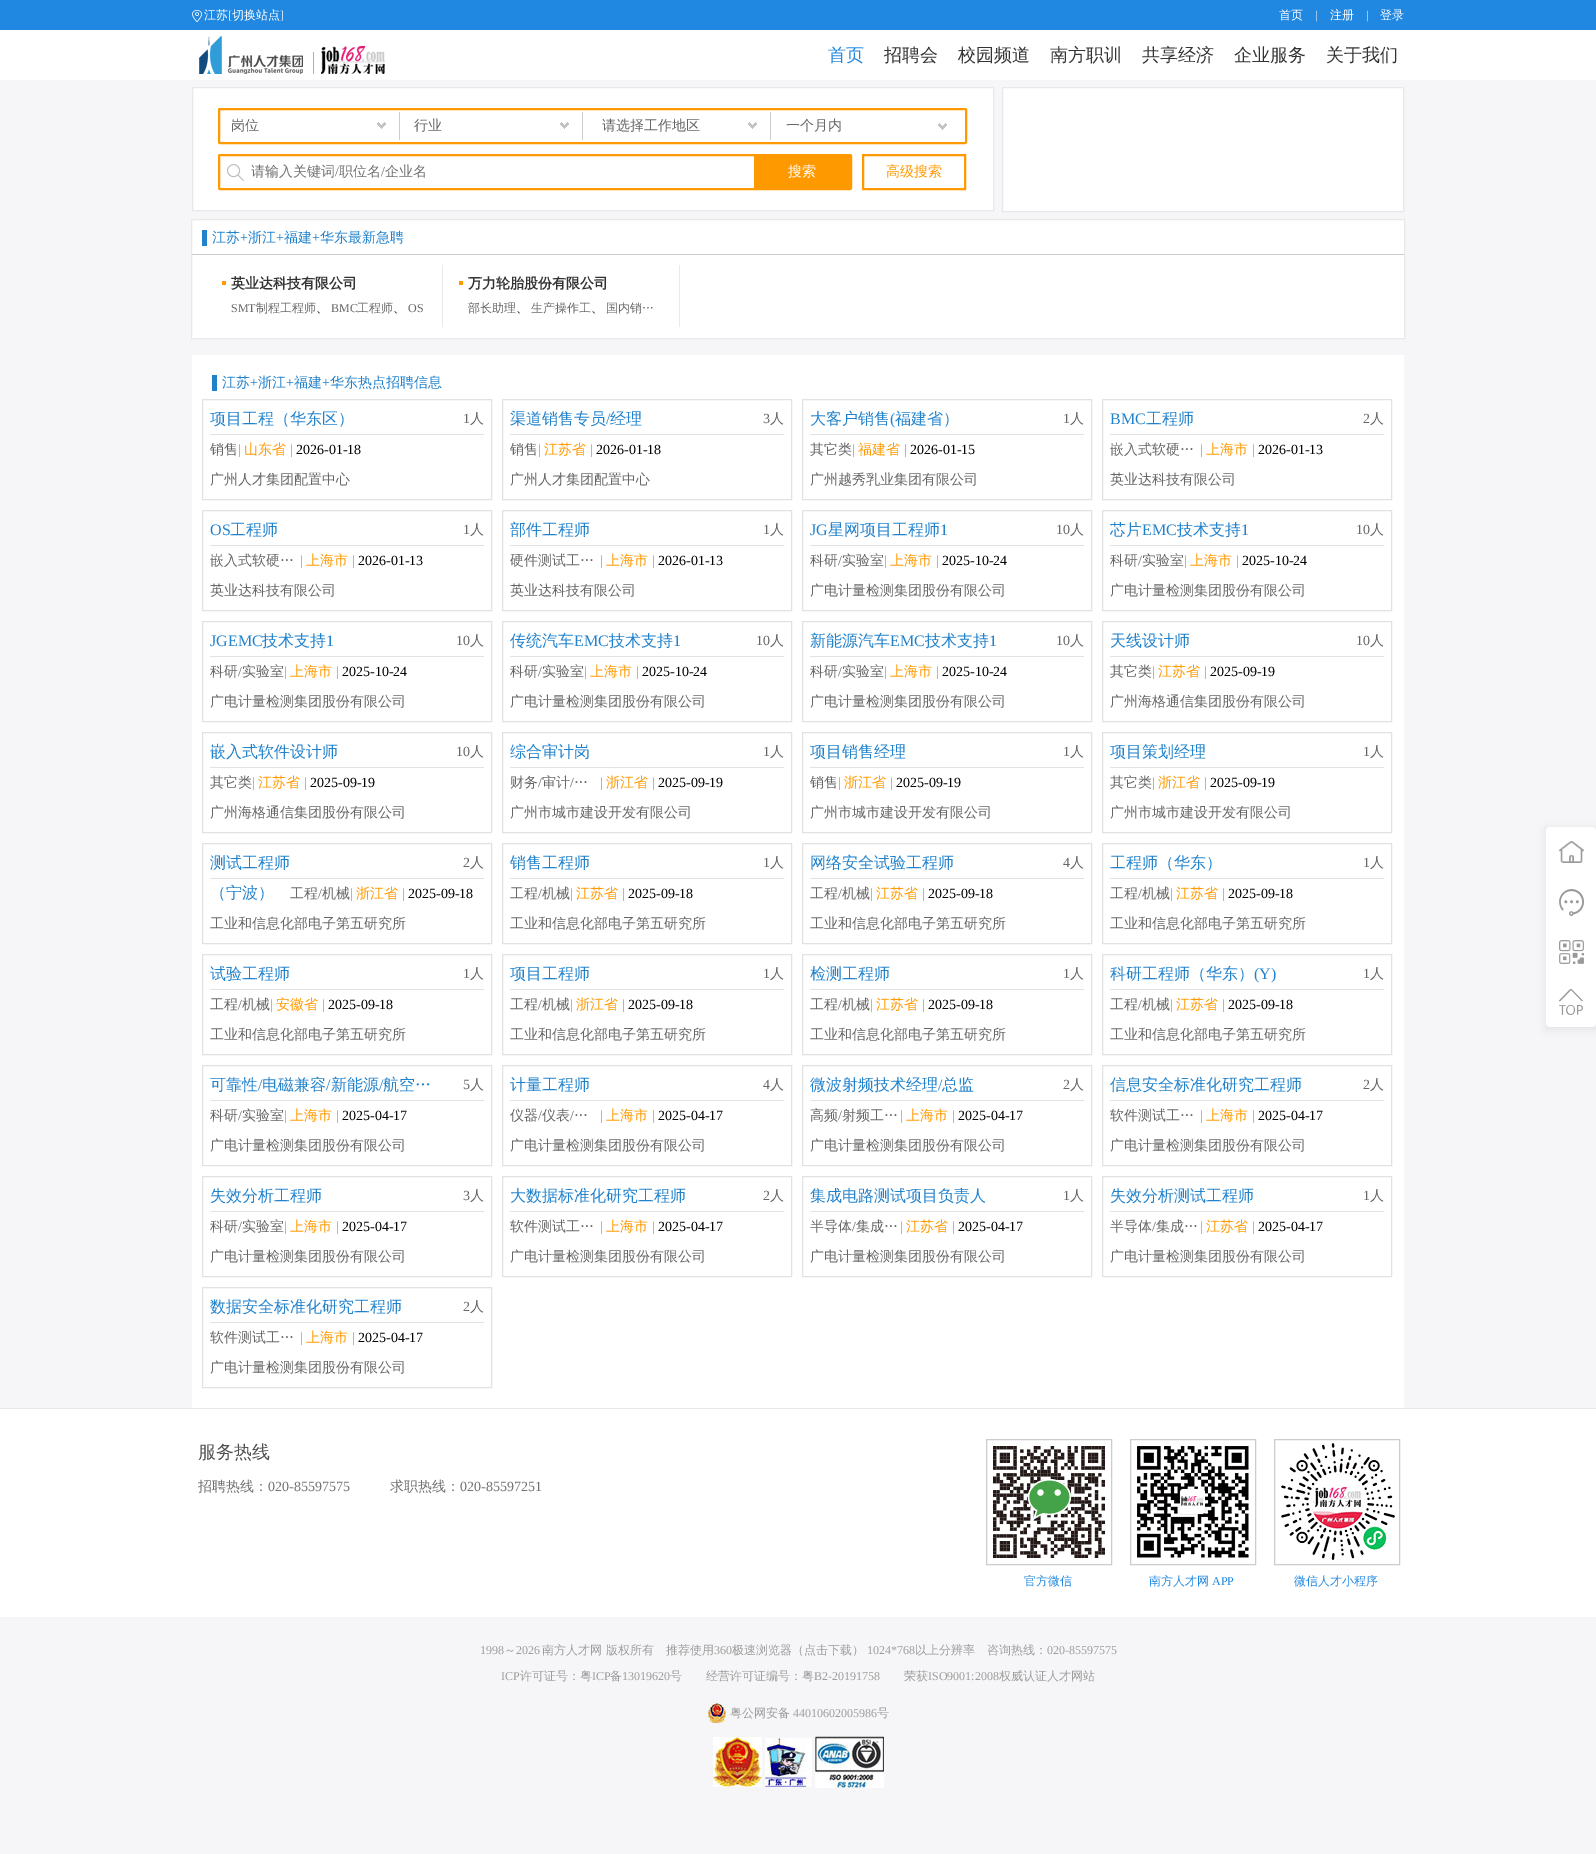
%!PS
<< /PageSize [1596 1854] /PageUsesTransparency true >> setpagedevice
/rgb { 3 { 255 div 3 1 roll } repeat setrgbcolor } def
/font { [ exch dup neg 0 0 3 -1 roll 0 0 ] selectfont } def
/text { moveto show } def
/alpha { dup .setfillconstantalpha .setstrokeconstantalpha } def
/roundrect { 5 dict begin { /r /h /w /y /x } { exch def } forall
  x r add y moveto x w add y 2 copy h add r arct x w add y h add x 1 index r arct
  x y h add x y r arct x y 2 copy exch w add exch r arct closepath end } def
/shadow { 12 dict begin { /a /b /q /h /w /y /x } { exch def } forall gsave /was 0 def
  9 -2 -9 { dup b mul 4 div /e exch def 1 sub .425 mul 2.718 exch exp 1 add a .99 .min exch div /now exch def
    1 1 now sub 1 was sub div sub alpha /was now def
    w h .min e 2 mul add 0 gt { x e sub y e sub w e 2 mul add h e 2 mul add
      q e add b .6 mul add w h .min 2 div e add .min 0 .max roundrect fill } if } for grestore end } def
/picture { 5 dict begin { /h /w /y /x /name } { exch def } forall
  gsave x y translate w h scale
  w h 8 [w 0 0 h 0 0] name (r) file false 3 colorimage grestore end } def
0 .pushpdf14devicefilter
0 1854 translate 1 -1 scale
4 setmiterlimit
246 246 248 rgb
0 0 1596 1854 rectfill
32 136 224 rgb
0 0 1596 30 rectfill
(img_01.rgb) 192 10 10 12 picture
255 255 255 rgb
0 30 1596 50 rectfill
(img_02.rgb) 199 36 186 38 picture
192.5 87.5 moveto 801 0 rlineto 0 123 rlineto -801 0 rlineto closepath gsave fill grestore
232 232 232 rgb
stroke
255 153 0 rgb
2 setlinewidth
219 109 747 34 1 roundrect stroke
(img_03.rgb) 377 122 9 7 picture
204 204 204 rgb
399 112 1 28 rectfill
(img_03.rgb) 560 122 9 7 picture
582 112 1 28 rectfill
(img_03.rgb) 748 122 9 7 picture
770 112 1 28 rectfill
(img_03.rgb) 938 123 9 7 picture
255 153 0 rgb
219 155 632 34 1 roundrect stroke
(img_04.rgb) 227 164 17 17 picture
754 156 96 32 rectfill
863 155 102 34 rectstroke
255 255 255 rgb
1002.5 87.5 moveto 401 0 rlineto 0 124 rlineto -401 0 rlineto closepath gsave fill grestore
232 232 232 rgb
1 setlinewidth
stroke
255 255 255 rgb
191.5 219.5 moveto 1213 0 rlineto 0 119 rlineto -1213 0 rlineto closepath gsave fill grestore
232 232 232 rgb
stroke
204 204 204 rgb
192 254 1212 1 rectfill
33 130 204 rgb
202 230 5 16 rectfill
234 234 234 rgb
442 265 1 63 rectfill
255 153 0 rgb
222 281 4 4 rectfill
234 234 234 rgb
679 265 1 63 rectfill
255 153 0 rgb
459 281 4 4 rectfill
255 255 255 rgb
442 327 238 1 rectfill
192 355 1212 1053 rectfill
33 130 204 rgb
212 375 5 16 rectfill
227 226 226 rgb
202.5 399.5 289 100 rectstroke
210 434 274 1 rectfill
502.5 399.5 289 100 rectstroke
510 434 274 1 rectfill
802.5 399.5 289 100 rectstroke
810 434 274 1 rectfill
1102.5 399.5 289 100 rectstroke
1110 434 274 1 rectfill
202.5 510.5 289 100 rectstroke
210 545 274 1 rectfill
502.5 510.5 289 100 rectstroke
510 545 274 1 rectfill
802.5 510.5 289 100 rectstroke
810 545 274 1 rectfill
1102.5 510.5 289 100 rectstroke
1110 545 274 1 rectfill
202.5 621.5 289 100 rectstroke
210 656 274 1 rectfill
502.5 621.5 289 100 rectstroke
510 656 274 1 rectfill
802.5 621.5 289 100 rectstroke
810 656 274 1 rectfill
1102.5 621.5 289 100 rectstroke
1110 656 274 1 rectfill
202.5 732.5 289 100 rectstroke
210 767 274 1 rectfill
502.5 732.5 289 100 rectstroke
510 767 274 1 rectfill
802.5 732.5 289 100 rectstroke
810 767 274 1 rectfill
1102.5 732.5 289 100 rectstroke
1110 767 274 1 rectfill
202.5 843.5 289 100 rectstroke
210 878 274 1 rectfill
502.5 843.5 289 100 rectstroke
510 878 274 1 rectfill
802.5 843.5 289 100 rectstroke
810 878 274 1 rectfill
1102.5 843.5 289 100 rectstroke
1110 878 274 1 rectfill
202.5 954.5 289 100 rectstroke
210 989 274 1 rectfill
502.5 954.5 289 100 rectstroke
510 989 274 1 rectfill
802.5 954.5 289 100 rectstroke
810 989 274 1 rectfill
1102.5 954.5 289 100 rectstroke
1110 989 274 1 rectfill
202.5 1065.5 289 100 rectstroke
210 1100 274 1 rectfill
502.5 1065.5 289 100 rectstroke
510 1100 274 1 rectfill
802.5 1065.5 289 100 rectstroke
810 1100 274 1 rectfill
1102.5 1065.5 289 100 rectstroke
1110 1100 274 1 rectfill
202.5 1176.5 289 100 rectstroke
210 1211 274 1 rectfill
502.5 1176.5 289 100 rectstroke
510 1211 274 1 rectfill
802.5 1176.5 289 100 rectstroke
810 1211 274 1 rectfill
1102.5 1176.5 289 100 rectstroke
1110 1211 274 1 rectfill
202.5 1287.5 289 100 rectstroke
210 1322 274 1 rectfill
21 31 79 rgb
1546 829 50 200 0 4 0.1 shadow
255 255 255 rgb
1550 827 moveto 42 0 rlineto 2 0 4 2 4 4 rcurveto 0 46 rlineto -50 0 rlineto 0 -46 rlineto 0 -2 2 -4 4 -4 rcurveto closepath fill
(img_05.rgb) 1559 841 25 22 picture
1546 877 50 100 rectfill
(img_06.rgb) 1559 889 25 27 picture
(img_07.rgb) 1559 940 25 24 picture
1546 977 moveto 50 0 rlineto 0 46 rlineto 0 2 -2 4 -4 4 rcurveto -42 0 rlineto -2 0 -4 -2 -4 -4 rcurveto closepath fill
(img_08.rgb) 1559 989 24 26 picture
0 1409 1596 208 rectfill
232 232 232 rgb
0 1408 1596 1 rectfill
(img_09.rgb) 993 1446 112 112 picture
204 204 204 rgb
986.5 1439.5 125 125 rectstroke
(img_10.rgb) 1137 1446 118 112 picture
1130.5 1439.5 125 125 rectstroke
(img_11.rgb) 1281 1443 114 117 picture
1274.5 1439.5 125 125 rectstroke
(img_12.rgb) 708 1703 18 20 picture
(img_13.rgb) 713 1737 49 50 picture
(img_14.rgb) 765 1738 47 49 picture
(img_15.rgb) 815 1736 69 52 picture
/WenQuanYiZenHei-Medium 12 font
255 255 255 rgb
(江苏) 204 19 text
/LiberationSerif-Regular 12 font
([) 228 19 text
/WenQuanYiZenHei-Medium 12 font
(切换站点) 232 19 text
/LiberationSerif-Regular 12 font
(]) 280 19 text
/WenQuanYiZenHei-Medium 12 font
(首页) 1279 19 text
/LiberationSerif-Regular 12 font
(|) 1315 19 text
/WenQuanYiZenHei-Medium 12 font
(注册) 1330 19 text
/LiberationSerif-Regular 12 font
(|) 1366 19 text
/WenQuanYiZenHei-Medium 12 font
(登录) 1380 19 text
/WenQuanYiZenHei-Medium 18 font
33 136 224 rgb
(首页) 828 61 text
51 51 51 rgb
(招聘会) 884 61 text
(校园频道) 958 61 text
(南方职训) 1050 61 text
(共享经济) 1142 61 text
(企业服务) 1234 61 text
(关于我们) 1326 61 text
/WenQuanYiZenHei-Medium 14 font
102 102 102 rgb
(岗位) 231 130 text
(行业) 414 130 text
(请选择工作地区) 602 130 text
(一个月内) 786 130 text
112 112 112 rgb
(请输入关键词) 251 176 text
/LiberationSerif-Regular 14 font
(/) 335 176 text
/WenQuanYiZenHei-Medium 14 font
(职位名) 339 176 text
/LiberationSerif-Regular 14 font
(/) 381 176 text
/WenQuanYiZenHei-Medium 14 font
(企业名) 385 176 text
255 255 255 rgb
(搜索) 788 176 text
255 153 0 rgb
(高级搜索) 886 176 text
33 130 204 rgb
(江苏) 212 242 text
/LiberationSerif-Regular 14 font
(+) 240 242 text
/WenQuanYiZenHei-Medium 14 font
(浙江) 248 242 text
/LiberationSerif-Regular 14 font
(+) 276 242 text
/WenQuanYiZenHei-Medium 14 font
(福建) 284 242 text
/LiberationSerif-Regular 14 font
(+) 312 242 text
/WenQuanYiZenHei-Medium 14 font
(华东最新急聘) 320 242 text
/WenQuanYiZenHei-Bold 14 font
51 51 51 rgb
(英业达科技有限公司) 231 288 text
/LiberationSerif-Regular 12 font
102 102 102 rgb
(SMT) 231 312 text
/WenQuanYiZenHei-Medium 12 font
(制程工程师) 256 312 text
0 0 0 rgb
(、) 316 312 text
/LiberationSerif-Regular 12 font
102 102 102 rgb
(BMC) 331 312 text
/WenQuanYiZenHei-Medium 12 font
(工程师) 357 312 text
0 0 0 rgb
(、) 393 312 text
/LiberationSerif-Regular 12 font
102 102 102 rgb
(OS) 408 312 text
/WenQuanYiZenHei-Bold 14 font
51 51 51 rgb
(万力轮胎股份有限公司) 468 288 text
/WenQuanYiZenHei-Medium 12 font
102 102 102 rgb
(部长助理) 468 312 text
0 0 0 rgb
(、) 516 312 text
102 102 102 rgb
(生产操作工) 531 312 text
0 0 0 rgb
(、) 591 312 text
102 102 102 rgb
(国内销…) 606 312 text
/WenQuanYiZenHei-Medium 14 font
33 130 204 rgb
(江苏) 222 387 text
/LiberationSerif-Regular 14 font
(+) 250 387 text
/WenQuanYiZenHei-Medium 14 font
(浙江) 258 387 text
/LiberationSerif-Regular 14 font
(+) 286 387 text
/WenQuanYiZenHei-Medium 14 font
(福建) 294 387 text
/LiberationSerif-Regular 14 font
(+) 322 387 text
/WenQuanYiZenHei-Medium 14 font
(华东热点招聘信息) 330 387 text
/WenQuanYiZenHei-Medium 16 font
(项目工程（华东区）) 210 424 text
/LiberationSerif-Regular 14 font
102 102 102 rgb
(1) 463 423 text
/WenQuanYiZenHei-Medium 14 font
(人) 470 423 text
(销售) 210 454 text
/LiberationSerif-Regular 14 font
156 156 156 rgb
(|) 238 454 text
/WenQuanYiZenHei-Medium 14 font
255 153 0 rgb
(山东省) 244 454 text
/LiberationSerif-Regular 14 font
156 156 156 rgb
(|) 290 454 text
0 0 0 rgb
(2026-01-18) 296 454 text
/WenQuanYiZenHei-Medium 14 font
102 102 102 rgb
(广州人才集团配置中心) 210 484 text
/WenQuanYiZenHei-Medium 16 font
33 130 204 rgb
(渠道销售专员) 510 424 text
/LiberationSerif-Regular 16 font
(/) 606 424 text
/WenQuanYiZenHei-Medium 16 font
(经理) 610 424 text
/LiberationSerif-Regular 14 font
102 102 102 rgb
(3) 763 423 text
/WenQuanYiZenHei-Medium 14 font
(人) 770 423 text
(销售) 510 454 text
/LiberationSerif-Regular 14 font
156 156 156 rgb
(|) 538 454 text
/WenQuanYiZenHei-Medium 14 font
255 153 0 rgb
(江苏省) 544 454 text
/LiberationSerif-Regular 14 font
156 156 156 rgb
(|) 590 454 text
0 0 0 rgb
(2026-01-18) 596 454 text
/WenQuanYiZenHei-Medium 14 font
102 102 102 rgb
(广州人才集团配置中心) 510 484 text
/WenQuanYiZenHei-Medium 16 font
33 130 204 rgb
(大客户销售) 810 424 text
/LiberationSerif-Regular 16 font
(\() 890 424 text
/WenQuanYiZenHei-Medium 16 font
(福建省）) 895 424 text
/LiberationSerif-Regular 14 font
102 102 102 rgb
(1) 1063 423 text
/WenQuanYiZenHei-Medium 14 font
(人) 1070 423 text
(其它类) 810 454 text
/LiberationSerif-Regular 14 font
156 156 156 rgb
(|) 852 454 text
/WenQuanYiZenHei-Medium 14 font
255 153 0 rgb
(福建省) 858 454 text
/LiberationSerif-Regular 14 font
156 156 156 rgb
(|) 904 454 text
0 0 0 rgb
(2026-01-15) 910 454 text
/WenQuanYiZenHei-Medium 14 font
102 102 102 rgb
(广州越秀乳业集团有限公司) 810 484 text
/LiberationSerif-Regular 16 font
33 130 204 rgb
(BMC) 1110 424 text
/WenQuanYiZenHei-Medium 16 font
(工程师) 1146 424 text
/LiberationSerif-Regular 14 font
102 102 102 rgb
(2) 1363 423 text
/WenQuanYiZenHei-Medium 14 font
(人) 1370 423 text
(嵌入式软硬…) 1110 454 text
/LiberationSerif-Regular 14 font
156 156 156 rgb
(|) 1200 454 text
/WenQuanYiZenHei-Medium 14 font
255 153 0 rgb
(上海市) 1206 454 text
/LiberationSerif-Regular 14 font
156 156 156 rgb
(|) 1252 454 text
0 0 0 rgb
(2026-01-13) 1258 454 text
/WenQuanYiZenHei-Medium 14 font
102 102 102 rgb
(英业达科技有限公司) 1110 484 text
/LiberationSerif-Regular 16 font
33 130 204 rgb
(OS) 210 535 text
/WenQuanYiZenHei-Medium 16 font
(工程师) 230 535 text
/LiberationSerif-Regular 14 font
102 102 102 rgb
(1) 463 534 text
/WenQuanYiZenHei-Medium 14 font
(人) 470 534 text
(嵌入式软硬…) 210 565 text
/LiberationSerif-Regular 14 font
156 156 156 rgb
(|) 300 565 text
/WenQuanYiZenHei-Medium 14 font
255 153 0 rgb
(上海市) 306 565 text
/LiberationSerif-Regular 14 font
156 156 156 rgb
(|) 352 565 text
0 0 0 rgb
(2026-01-13) 358 565 text
/WenQuanYiZenHei-Medium 14 font
102 102 102 rgb
(英业达科技有限公司) 210 595 text
/WenQuanYiZenHei-Medium 16 font
33 130 204 rgb
(部件工程师) 510 535 text
/LiberationSerif-Regular 14 font
102 102 102 rgb
(1) 763 534 text
/WenQuanYiZenHei-Medium 14 font
(人) 770 534 text
(硬件测试工…) 510 565 text
/LiberationSerif-Regular 14 font
156 156 156 rgb
(|) 600 565 text
/WenQuanYiZenHei-Medium 14 font
255 153 0 rgb
(上海市) 606 565 text
/LiberationSerif-Regular 14 font
156 156 156 rgb
(|) 652 565 text
0 0 0 rgb
(2026-01-13) 658 565 text
/WenQuanYiZenHei-Medium 14 font
102 102 102 rgb
(英业达科技有限公司) 510 595 text
/LiberationSerif-Regular 16 font
33 130 204 rgb
(JG) 810 535 text
/WenQuanYiZenHei-Medium 16 font
(星网项目工程师) 828 535 text
/LiberationSerif-Regular 16 font
(1) 940 535 text
/LiberationSerif-Regular 14 font
102 102 102 rgb
(10) 1056 534 text
/WenQuanYiZenHei-Medium 14 font
(人) 1070 534 text
(科研) 810 565 text
/LiberationSerif-Regular 14 font
(/) 838 565 text
/WenQuanYiZenHei-Medium 14 font
(实验室) 842 565 text
/LiberationSerif-Regular 14 font
156 156 156 rgb
(|) 884 565 text
/WenQuanYiZenHei-Medium 14 font
255 153 0 rgb
(上海市) 890 565 text
/LiberationSerif-Regular 14 font
156 156 156 rgb
(|) 936 565 text
0 0 0 rgb
(2025-10-24) 942 565 text
/WenQuanYiZenHei-Medium 14 font
102 102 102 rgb
(广电计量检测集团股份有限公司) 810 595 text
/WenQuanYiZenHei-Medium 16 font
33 130 204 rgb
(芯片) 1110 535 text
/LiberationSerif-Regular 16 font
(EMC) 1142 535 text
/WenQuanYiZenHei-Medium 16 font
(技术支持) 1177 535 text
/LiberationSerif-Regular 16 font
(1) 1241 535 text
/LiberationSerif-Regular 14 font
102 102 102 rgb
(10) 1356 534 text
/WenQuanYiZenHei-Medium 14 font
(人) 1370 534 text
(科研) 1110 565 text
/LiberationSerif-Regular 14 font
(/) 1138 565 text
/WenQuanYiZenHei-Medium 14 font
(实验室) 1142 565 text
/LiberationSerif-Regular 14 font
156 156 156 rgb
(|) 1184 565 text
/WenQuanYiZenHei-Medium 14 font
255 153 0 rgb
(上海市) 1190 565 text
/LiberationSerif-Regular 14 font
156 156 156 rgb
(|) 1236 565 text
0 0 0 rgb
(2025-10-24) 1242 565 text
/WenQuanYiZenHei-Medium 14 font
102 102 102 rgb
(广电计量检测集团股份有限公司) 1110 595 text
/LiberationSerif-Regular 16 font
33 130 204 rgb
(JGEMC) 210 646 text
/WenQuanYiZenHei-Medium 16 font
(技术支持) 262 646 text
/LiberationSerif-Regular 16 font
(1) 326 646 text
/LiberationSerif-Regular 14 font
102 102 102 rgb
(10) 456 645 text
/WenQuanYiZenHei-Medium 14 font
(人) 470 645 text
(科研) 210 676 text
/LiberationSerif-Regular 14 font
(/) 238 676 text
/WenQuanYiZenHei-Medium 14 font
(实验室) 242 676 text
/LiberationSerif-Regular 14 font
156 156 156 rgb
(|) 284 676 text
/WenQuanYiZenHei-Medium 14 font
255 153 0 rgb
(上海市) 290 676 text
/LiberationSerif-Regular 14 font
156 156 156 rgb
(|) 336 676 text
0 0 0 rgb
(2025-10-24) 342 676 text
/WenQuanYiZenHei-Medium 14 font
102 102 102 rgb
(广电计量检测集团股份有限公司) 210 706 text
/WenQuanYiZenHei-Medium 16 font
33 130 204 rgb
(传统汽车) 510 646 text
/LiberationSerif-Regular 16 font
(EMC) 574 646 text
/WenQuanYiZenHei-Medium 16 font
(技术支持) 609 646 text
/LiberationSerif-Regular 16 font
(1) 673 646 text
/LiberationSerif-Regular 14 font
102 102 102 rgb
(10) 756 645 text
/WenQuanYiZenHei-Medium 14 font
(人) 770 645 text
(科研) 510 676 text
/LiberationSerif-Regular 14 font
(/) 538 676 text
/WenQuanYiZenHei-Medium 14 font
(实验室) 542 676 text
/LiberationSerif-Regular 14 font
156 156 156 rgb
(|) 584 676 text
/WenQuanYiZenHei-Medium 14 font
255 153 0 rgb
(上海市) 590 676 text
/LiberationSerif-Regular 14 font
156 156 156 rgb
(|) 636 676 text
0 0 0 rgb
(2025-10-24) 642 676 text
/WenQuanYiZenHei-Medium 14 font
102 102 102 rgb
(广电计量检测集团股份有限公司) 510 706 text
/WenQuanYiZenHei-Medium 16 font
33 130 204 rgb
(新能源汽车) 810 646 text
/LiberationSerif-Regular 16 font
(EMC) 890 646 text
/WenQuanYiZenHei-Medium 16 font
(技术支持) 925 646 text
/LiberationSerif-Regular 16 font
(1) 989 646 text
/LiberationSerif-Regular 14 font
102 102 102 rgb
(10) 1056 645 text
/WenQuanYiZenHei-Medium 14 font
(人) 1070 645 text
(科研) 810 676 text
/LiberationSerif-Regular 14 font
(/) 838 676 text
/WenQuanYiZenHei-Medium 14 font
(实验室) 842 676 text
/LiberationSerif-Regular 14 font
156 156 156 rgb
(|) 884 676 text
/WenQuanYiZenHei-Medium 14 font
255 153 0 rgb
(上海市) 890 676 text
/LiberationSerif-Regular 14 font
156 156 156 rgb
(|) 936 676 text
0 0 0 rgb
(2025-10-24) 942 676 text
/WenQuanYiZenHei-Medium 14 font
102 102 102 rgb
(广电计量检测集团股份有限公司) 810 706 text
/WenQuanYiZenHei-Medium 16 font
33 130 204 rgb
(天线设计师) 1110 646 text
/LiberationSerif-Regular 14 font
102 102 102 rgb
(10) 1356 645 text
/WenQuanYiZenHei-Medium 14 font
(人) 1370 645 text
(其它类) 1110 676 text
/LiberationSerif-Regular 14 font
156 156 156 rgb
(|) 1152 676 text
/WenQuanYiZenHei-Medium 14 font
255 153 0 rgb
(江苏省) 1158 676 text
/LiberationSerif-Regular 14 font
156 156 156 rgb
(|) 1204 676 text
0 0 0 rgb
(2025-09-19) 1210 676 text
/WenQuanYiZenHei-Medium 14 font
102 102 102 rgb
(广州海格通信集团股份有限公司) 1110 706 text
/WenQuanYiZenHei-Medium 16 font
33 130 204 rgb
(嵌入式软件设计师) 210 757 text
/LiberationSerif-Regular 14 font
102 102 102 rgb
(10) 456 756 text
/WenQuanYiZenHei-Medium 14 font
(人) 470 756 text
(其它类) 210 787 text
/LiberationSerif-Regular 14 font
156 156 156 rgb
(|) 252 787 text
/WenQuanYiZenHei-Medium 14 font
255 153 0 rgb
(江苏省) 258 787 text
/LiberationSerif-Regular 14 font
156 156 156 rgb
(|) 304 787 text
0 0 0 rgb
(2025-09-19) 310 787 text
/WenQuanYiZenHei-Medium 14 font
102 102 102 rgb
(广州海格通信集团股份有限公司) 210 817 text
/WenQuanYiZenHei-Medium 16 font
33 130 204 rgb
(综合审计岗) 510 757 text
/LiberationSerif-Regular 14 font
102 102 102 rgb
(1) 763 756 text
/WenQuanYiZenHei-Medium 14 font
(人) 770 756 text
(财务) 510 787 text
/LiberationSerif-Regular 14 font
(/) 538 787 text
/WenQuanYiZenHei-Medium 14 font
(审计) 542 787 text
/LiberationSerif-Regular 14 font
(/) 570 787 text
/WenQuanYiZenHei-Medium 14 font
(…) 574 787 text
/LiberationSerif-Regular 14 font
156 156 156 rgb
(|) 600 787 text
/WenQuanYiZenHei-Medium 14 font
255 153 0 rgb
(浙江省) 606 787 text
/LiberationSerif-Regular 14 font
156 156 156 rgb
(|) 652 787 text
0 0 0 rgb
(2025-09-19) 658 787 text
/WenQuanYiZenHei-Medium 14 font
102 102 102 rgb
(广州市城市建设开发有限公司) 510 817 text
/WenQuanYiZenHei-Medium 16 font
33 130 204 rgb
(项目销售经理) 810 757 text
/LiberationSerif-Regular 14 font
102 102 102 rgb
(1) 1063 756 text
/WenQuanYiZenHei-Medium 14 font
(人) 1070 756 text
(销售) 810 787 text
/LiberationSerif-Regular 14 font
156 156 156 rgb
(|) 838 787 text
/WenQuanYiZenHei-Medium 14 font
255 153 0 rgb
(浙江省) 844 787 text
/LiberationSerif-Regular 14 font
156 156 156 rgb
(|) 890 787 text
0 0 0 rgb
(2025-09-19) 896 787 text
/WenQuanYiZenHei-Medium 14 font
102 102 102 rgb
(广州市城市建设开发有限公司) 810 817 text
/WenQuanYiZenHei-Medium 16 font
33 130 204 rgb
(项目策划经理) 1110 757 text
/LiberationSerif-Regular 14 font
102 102 102 rgb
(1) 1363 756 text
/WenQuanYiZenHei-Medium 14 font
(人) 1370 756 text
(其它类) 1110 787 text
/LiberationSerif-Regular 14 font
156 156 156 rgb
(|) 1152 787 text
/WenQuanYiZenHei-Medium 14 font
255 153 0 rgb
(浙江省) 1158 787 text
/LiberationSerif-Regular 14 font
156 156 156 rgb
(|) 1204 787 text
0 0 0 rgb
(2025-09-19) 1210 787 text
/WenQuanYiZenHei-Medium 14 font
102 102 102 rgb
(广州市城市建设开发有限公司) 1110 817 text
/WenQuanYiZenHei-Medium 16 font
33 130 204 rgb
(测试工程师) 210 868 text
(（宁波）) 210 898 text
/LiberationSerif-Regular 14 font
102 102 102 rgb
(2) 463 867 text
/WenQuanYiZenHei-Medium 14 font
(人) 470 867 text
(工程) 290 898 text
/LiberationSerif-Regular 14 font
(/) 318 898 text
/WenQuanYiZenHei-Medium 14 font
(机械) 322 898 text
/LiberationSerif-Regular 14 font
156 156 156 rgb
(|) 350 898 text
/WenQuanYiZenHei-Medium 14 font
255 153 0 rgb
(浙江省) 356 898 text
/LiberationSerif-Regular 14 font
156 156 156 rgb
(|) 402 898 text
0 0 0 rgb
(2025-09-18) 408 898 text
/WenQuanYiZenHei-Medium 14 font
102 102 102 rgb
(工业和信息化部电子第五研究所) 210 928 text
/WenQuanYiZenHei-Medium 16 font
33 130 204 rgb
(销售工程师) 510 868 text
/LiberationSerif-Regular 14 font
102 102 102 rgb
(1) 763 867 text
/WenQuanYiZenHei-Medium 14 font
(人) 770 867 text
(工程) 510 898 text
/LiberationSerif-Regular 14 font
(/) 538 898 text
/WenQuanYiZenHei-Medium 14 font
(机械) 542 898 text
/LiberationSerif-Regular 14 font
156 156 156 rgb
(|) 570 898 text
/WenQuanYiZenHei-Medium 14 font
255 153 0 rgb
(江苏省) 576 898 text
/LiberationSerif-Regular 14 font
156 156 156 rgb
(|) 622 898 text
0 0 0 rgb
(2025-09-18) 628 898 text
/WenQuanYiZenHei-Medium 14 font
102 102 102 rgb
(工业和信息化部电子第五研究所) 510 928 text
/WenQuanYiZenHei-Medium 16 font
33 130 204 rgb
(网络安全试验工程师) 810 868 text
/LiberationSerif-Regular 14 font
102 102 102 rgb
(4) 1063 867 text
/WenQuanYiZenHei-Medium 14 font
(人) 1070 867 text
(工程) 810 898 text
/LiberationSerif-Regular 14 font
(/) 838 898 text
/WenQuanYiZenHei-Medium 14 font
(机械) 842 898 text
/LiberationSerif-Regular 14 font
156 156 156 rgb
(|) 870 898 text
/WenQuanYiZenHei-Medium 14 font
255 153 0 rgb
(江苏省) 876 898 text
/LiberationSerif-Regular 14 font
156 156 156 rgb
(|) 922 898 text
0 0 0 rgb
(2025-09-18) 928 898 text
/WenQuanYiZenHei-Medium 14 font
102 102 102 rgb
(工业和信息化部电子第五研究所) 810 928 text
/WenQuanYiZenHei-Medium 16 font
33 130 204 rgb
(工程师（华东）) 1110 868 text
/LiberationSerif-Regular 14 font
102 102 102 rgb
(1) 1363 867 text
/WenQuanYiZenHei-Medium 14 font
(人) 1370 867 text
(工程) 1110 898 text
/LiberationSerif-Regular 14 font
(/) 1138 898 text
/WenQuanYiZenHei-Medium 14 font
(机械) 1142 898 text
/LiberationSerif-Regular 14 font
156 156 156 rgb
(|) 1170 898 text
/WenQuanYiZenHei-Medium 14 font
255 153 0 rgb
(江苏省) 1176 898 text
/LiberationSerif-Regular 14 font
156 156 156 rgb
(|) 1222 898 text
0 0 0 rgb
(2025-09-18) 1228 898 text
/WenQuanYiZenHei-Medium 14 font
102 102 102 rgb
(工业和信息化部电子第五研究所) 1110 928 text
/WenQuanYiZenHei-Medium 16 font
33 130 204 rgb
(试验工程师) 210 979 text
/LiberationSerif-Regular 14 font
102 102 102 rgb
(1) 463 978 text
/WenQuanYiZenHei-Medium 14 font
(人) 470 978 text
(工程) 210 1009 text
/LiberationSerif-Regular 14 font
(/) 238 1009 text
/WenQuanYiZenHei-Medium 14 font
(机械) 242 1009 text
/LiberationSerif-Regular 14 font
156 156 156 rgb
(|) 270 1009 text
/WenQuanYiZenHei-Medium 14 font
255 153 0 rgb
(安徽省) 276 1009 text
/LiberationSerif-Regular 14 font
156 156 156 rgb
(|) 322 1009 text
0 0 0 rgb
(2025-09-18) 328 1009 text
/WenQuanYiZenHei-Medium 14 font
102 102 102 rgb
(工业和信息化部电子第五研究所) 210 1039 text
/WenQuanYiZenHei-Medium 16 font
33 130 204 rgb
(项目工程师) 510 979 text
/LiberationSerif-Regular 14 font
102 102 102 rgb
(1) 763 978 text
/WenQuanYiZenHei-Medium 14 font
(人) 770 978 text
(工程) 510 1009 text
/LiberationSerif-Regular 14 font
(/) 538 1009 text
/WenQuanYiZenHei-Medium 14 font
(机械) 542 1009 text
/LiberationSerif-Regular 14 font
156 156 156 rgb
(|) 570 1009 text
/WenQuanYiZenHei-Medium 14 font
255 153 0 rgb
(浙江省) 576 1009 text
/LiberationSerif-Regular 14 font
156 156 156 rgb
(|) 622 1009 text
0 0 0 rgb
(2025-09-18) 628 1009 text
/WenQuanYiZenHei-Medium 14 font
102 102 102 rgb
(工业和信息化部电子第五研究所) 510 1039 text
/WenQuanYiZenHei-Medium 16 font
33 130 204 rgb
(检测工程师) 810 979 text
/LiberationSerif-Regular 14 font
102 102 102 rgb
(1) 1063 978 text
/WenQuanYiZenHei-Medium 14 font
(人) 1070 978 text
(工程) 810 1009 text
/LiberationSerif-Regular 14 font
(/) 838 1009 text
/WenQuanYiZenHei-Medium 14 font
(机械) 842 1009 text
/LiberationSerif-Regular 14 font
156 156 156 rgb
(|) 870 1009 text
/WenQuanYiZenHei-Medium 14 font
255 153 0 rgb
(江苏省) 876 1009 text
/LiberationSerif-Regular 14 font
156 156 156 rgb
(|) 922 1009 text
0 0 0 rgb
(2025-09-18) 928 1009 text
/WenQuanYiZenHei-Medium 14 font
102 102 102 rgb
(工业和信息化部电子第五研究所) 810 1039 text
/WenQuanYiZenHei-Medium 16 font
33 130 204 rgb
(科研工程师（华东）) 1110 979 text
/LiberationSerif-Regular 16 font
(\(Y\)) 1254 979 text
/LiberationSerif-Regular 14 font
102 102 102 rgb
(1) 1363 978 text
/WenQuanYiZenHei-Medium 14 font
(人) 1370 978 text
(工程) 1110 1009 text
/LiberationSerif-Regular 14 font
(/) 1138 1009 text
/WenQuanYiZenHei-Medium 14 font
(机械) 1142 1009 text
/LiberationSerif-Regular 14 font
156 156 156 rgb
(|) 1170 1009 text
/WenQuanYiZenHei-Medium 14 font
255 153 0 rgb
(江苏省) 1176 1009 text
/LiberationSerif-Regular 14 font
156 156 156 rgb
(|) 1222 1009 text
0 0 0 rgb
(2025-09-18) 1228 1009 text
/WenQuanYiZenHei-Medium 14 font
102 102 102 rgb
(工业和信息化部电子第五研究所) 1110 1039 text
/WenQuanYiZenHei-Medium 16 font
33 130 204 rgb
(可靠性) 210 1090 text
/LiberationSerif-Regular 16 font
(/) 258 1090 text
/WenQuanYiZenHei-Medium 16 font
(电磁兼容) 262 1090 text
/LiberationSerif-Regular 16 font
(/) 326 1090 text
/WenQuanYiZenHei-Medium 16 font
(新能源) 331 1090 text
/LiberationSerif-Regular 16 font
(/) 379 1090 text
/WenQuanYiZenHei-Medium 16 font
(航空…) 383 1090 text
/LiberationSerif-Regular 14 font
102 102 102 rgb
(5) 463 1089 text
/WenQuanYiZenHei-Medium 14 font
(人) 470 1089 text
(科研) 210 1120 text
/LiberationSerif-Regular 14 font
(/) 238 1120 text
/WenQuanYiZenHei-Medium 14 font
(实验室) 242 1120 text
/LiberationSerif-Regular 14 font
156 156 156 rgb
(|) 284 1120 text
/WenQuanYiZenHei-Medium 14 font
255 153 0 rgb
(上海市) 290 1120 text
/LiberationSerif-Regular 14 font
156 156 156 rgb
(|) 336 1120 text
0 0 0 rgb
(2025-04-17) 342 1120 text
/WenQuanYiZenHei-Medium 14 font
102 102 102 rgb
(广电计量检测集团股份有限公司) 210 1150 text
/WenQuanYiZenHei-Medium 16 font
33 130 204 rgb
(计量工程师) 510 1090 text
/LiberationSerif-Regular 14 font
102 102 102 rgb
(4) 763 1089 text
/WenQuanYiZenHei-Medium 14 font
(人) 770 1089 text
(仪器) 510 1120 text
/LiberationSerif-Regular 14 font
(/) 538 1120 text
/WenQuanYiZenHei-Medium 14 font
(仪表) 542 1120 text
/LiberationSerif-Regular 14 font
(/) 570 1120 text
/WenQuanYiZenHei-Medium 14 font
(…) 574 1120 text
/LiberationSerif-Regular 14 font
156 156 156 rgb
(|) 600 1120 text
/WenQuanYiZenHei-Medium 14 font
255 153 0 rgb
(上海市) 606 1120 text
/LiberationSerif-Regular 14 font
156 156 156 rgb
(|) 652 1120 text
0 0 0 rgb
(2025-04-17) 658 1120 text
/WenQuanYiZenHei-Medium 14 font
102 102 102 rgb
(广电计量检测集团股份有限公司) 510 1150 text
/WenQuanYiZenHei-Medium 16 font
33 130 204 rgb
(微波射频技术经理) 810 1090 text
/LiberationSerif-Regular 16 font
(/) 938 1090 text
/WenQuanYiZenHei-Medium 16 font
(总监) 942 1090 text
/LiberationSerif-Regular 14 font
102 102 102 rgb
(2) 1063 1089 text
/WenQuanYiZenHei-Medium 14 font
(人) 1070 1089 text
(高频) 810 1120 text
/LiberationSerif-Regular 14 font
(/) 838 1120 text
/WenQuanYiZenHei-Medium 14 font
(射频工…) 842 1120 text
/LiberationSerif-Regular 14 font
156 156 156 rgb
(|) 900 1120 text
/WenQuanYiZenHei-Medium 14 font
255 153 0 rgb
(上海市) 906 1120 text
/LiberationSerif-Regular 14 font
156 156 156 rgb
(|) 952 1120 text
0 0 0 rgb
(2025-04-17) 958 1120 text
/WenQuanYiZenHei-Medium 14 font
102 102 102 rgb
(广电计量检测集团股份有限公司) 810 1150 text
/WenQuanYiZenHei-Medium 16 font
33 130 204 rgb
(信息安全标准化研究工程师) 1110 1090 text
/LiberationSerif-Regular 14 font
102 102 102 rgb
(2) 1363 1089 text
/WenQuanYiZenHei-Medium 14 font
(人) 1370 1089 text
(软件测试工…) 1110 1120 text
/LiberationSerif-Regular 14 font
156 156 156 rgb
(|) 1200 1120 text
/WenQuanYiZenHei-Medium 14 font
255 153 0 rgb
(上海市) 1206 1120 text
/LiberationSerif-Regular 14 font
156 156 156 rgb
(|) 1252 1120 text
0 0 0 rgb
(2025-04-17) 1258 1120 text
/WenQuanYiZenHei-Medium 14 font
102 102 102 rgb
(广电计量检测集团股份有限公司) 1110 1150 text
/WenQuanYiZenHei-Medium 16 font
33 130 204 rgb
(失效分析工程师) 210 1201 text
/LiberationSerif-Regular 14 font
102 102 102 rgb
(3) 463 1200 text
/WenQuanYiZenHei-Medium 14 font
(人) 470 1200 text
(科研) 210 1231 text
/LiberationSerif-Regular 14 font
(/) 238 1231 text
/WenQuanYiZenHei-Medium 14 font
(实验室) 242 1231 text
/LiberationSerif-Regular 14 font
156 156 156 rgb
(|) 284 1231 text
/WenQuanYiZenHei-Medium 14 font
255 153 0 rgb
(上海市) 290 1231 text
/LiberationSerif-Regular 14 font
156 156 156 rgb
(|) 336 1231 text
0 0 0 rgb
(2025-04-17) 342 1231 text
/WenQuanYiZenHei-Medium 14 font
102 102 102 rgb
(广电计量检测集团股份有限公司) 210 1261 text
/WenQuanYiZenHei-Medium 16 font
33 130 204 rgb
(大数据标准化研究工程师) 510 1201 text
/LiberationSerif-Regular 14 font
102 102 102 rgb
(2) 763 1200 text
/WenQuanYiZenHei-Medium 14 font
(人) 770 1200 text
(软件测试工…) 510 1231 text
/LiberationSerif-Regular 14 font
156 156 156 rgb
(|) 600 1231 text
/WenQuanYiZenHei-Medium 14 font
255 153 0 rgb
(上海市) 606 1231 text
/LiberationSerif-Regular 14 font
156 156 156 rgb
(|) 652 1231 text
0 0 0 rgb
(2025-04-17) 658 1231 text
/WenQuanYiZenHei-Medium 14 font
102 102 102 rgb
(广电计量检测集团股份有限公司) 510 1261 text
/WenQuanYiZenHei-Medium 16 font
33 130 204 rgb
(集成电路测试项目负责人) 810 1201 text
/LiberationSerif-Regular 14 font
102 102 102 rgb
(1) 1063 1200 text
/WenQuanYiZenHei-Medium 14 font
(人) 1070 1200 text
(半导体) 810 1231 text
/LiberationSerif-Regular 14 font
(/) 852 1231 text
/WenQuanYiZenHei-Medium 14 font
(集成…) 856 1231 text
/LiberationSerif-Regular 14 font
156 156 156 rgb
(|) 900 1231 text
/WenQuanYiZenHei-Medium 14 font
255 153 0 rgb
(江苏省) 906 1231 text
/LiberationSerif-Regular 14 font
156 156 156 rgb
(|) 952 1231 text
0 0 0 rgb
(2025-04-17) 958 1231 text
/WenQuanYiZenHei-Medium 14 font
102 102 102 rgb
(广电计量检测集团股份有限公司) 810 1261 text
/WenQuanYiZenHei-Medium 16 font
33 130 204 rgb
(失效分析测试工程师) 1110 1201 text
/LiberationSerif-Regular 14 font
102 102 102 rgb
(1) 1363 1200 text
/WenQuanYiZenHei-Medium 14 font
(人) 1370 1200 text
(半导体) 1110 1231 text
/LiberationSerif-Regular 14 font
(/) 1152 1231 text
/WenQuanYiZenHei-Medium 14 font
(集成…) 1156 1231 text
/LiberationSerif-Regular 14 font
156 156 156 rgb
(|) 1200 1231 text
/WenQuanYiZenHei-Medium 14 font
255 153 0 rgb
(江苏省) 1206 1231 text
/LiberationSerif-Regular 14 font
156 156 156 rgb
(|) 1252 1231 text
0 0 0 rgb
(2025-04-17) 1258 1231 text
/WenQuanYiZenHei-Medium 14 font
102 102 102 rgb
(广电计量检测集团股份有限公司) 1110 1261 text
/WenQuanYiZenHei-Medium 16 font
33 130 204 rgb
(数据安全标准化研究工程师) 210 1312 text
/LiberationSerif-Regular 14 font
102 102 102 rgb
(2) 463 1311 text
/WenQuanYiZenHei-Medium 14 font
(人) 470 1311 text
(软件测试工…) 210 1342 text
/LiberationSerif-Regular 14 font
156 156 156 rgb
(|) 300 1342 text
/WenQuanYiZenHei-Medium 14 font
255 153 0 rgb
(上海市) 306 1342 text
/LiberationSerif-Regular 14 font
156 156 156 rgb
(|) 352 1342 text
0 0 0 rgb
(2025-04-17) 358 1342 text
/WenQuanYiZenHei-Medium 14 font
102 102 102 rgb
(广电计量检测集团股份有限公司) 210 1372 text
/WenQuanYiZenHei-Medium 18 font
80 80 80 rgb
(服务热线) 198 1458 text
/WenQuanYiZenHei-Medium 14 font
112 112 112 rgb
(招聘热线：) 198 1491 text
/LiberationSerif-Regular 14 font
(020-85597575) 268 1491 text
/WenQuanYiZenHei-Medium 14 font
(求职热线：) 390 1491 text
/LiberationSerif-Regular 14 font
(020-85597251) 460 1491 text
/WenQuanYiZenHei-Medium 12 font
33 136 224 rgb
(官方微信) 1024 1585 text
(南方人才网) 1149 1585 text
/LiberationSerif-Regular 12 font
(APP) 1212 1585 text
/WenQuanYiZenHei-Medium 12 font
(微信人才小程序) 1294 1585 text
/LiberationSerif-Regular 12 font
156 156 156 rgb
(1998) 480 1654 text
/WenQuanYiZenHei-Medium 12 font
(～) 504 1654 text
/LiberationSerif-Regular 12 font
(2026) 516 1654 text
/WenQuanYiZenHei-Medium 12 font
(南方人才网 版权所有　推荐使用) 542 1654 text
/LiberationSerif-Regular 12 font
(360) 714 1654 text
/WenQuanYiZenHei-Medium 12 font
(极速浏览器（点击下载）) 732 1654 text
/LiberationSerif-Regular 12 font
(1024*768) 867 1654 text
/WenQuanYiZenHei-Medium 12 font
(以上分辨率　咨询热线：) 915 1654 text
/LiberationSerif-Regular 12 font
(020-85597575) 1047 1654 text
(ICP) 501 1680 text
/WenQuanYiZenHei-Medium 12 font
(许可证号：粤) 520 1680 text
/LiberationSerif-Regular 12 font
(ICP) 592 1680 text
/WenQuanYiZenHei-Medium 12 font
(备) 610 1680 text
/LiberationSerif-Regular 12 font
(13019620) 622 1680 text
/WenQuanYiZenHei-Medium 12 font
(号) 670 1680 text
(经营许可证编号：粤) 706 1680 text
/LiberationSerif-Regular 12 font
(B2-20191758) 814 1680 text
/WenQuanYiZenHei-Medium 12 font
(荣获) 904 1680 text
/LiberationSerif-Regular 12 font
(ISO9001:2008) 928 1680 text
/WenQuanYiZenHei-Medium 12 font
(权威认证人才网站) 999 1680 text
(粤公网安备) 730 1717 text
/LiberationSerif-Regular 12 font
(44010602005986) 793 1717 text
/WenQuanYiZenHei-Medium 12 font
(号) 877 1717 text
.poppdf14devicefilter showpage
